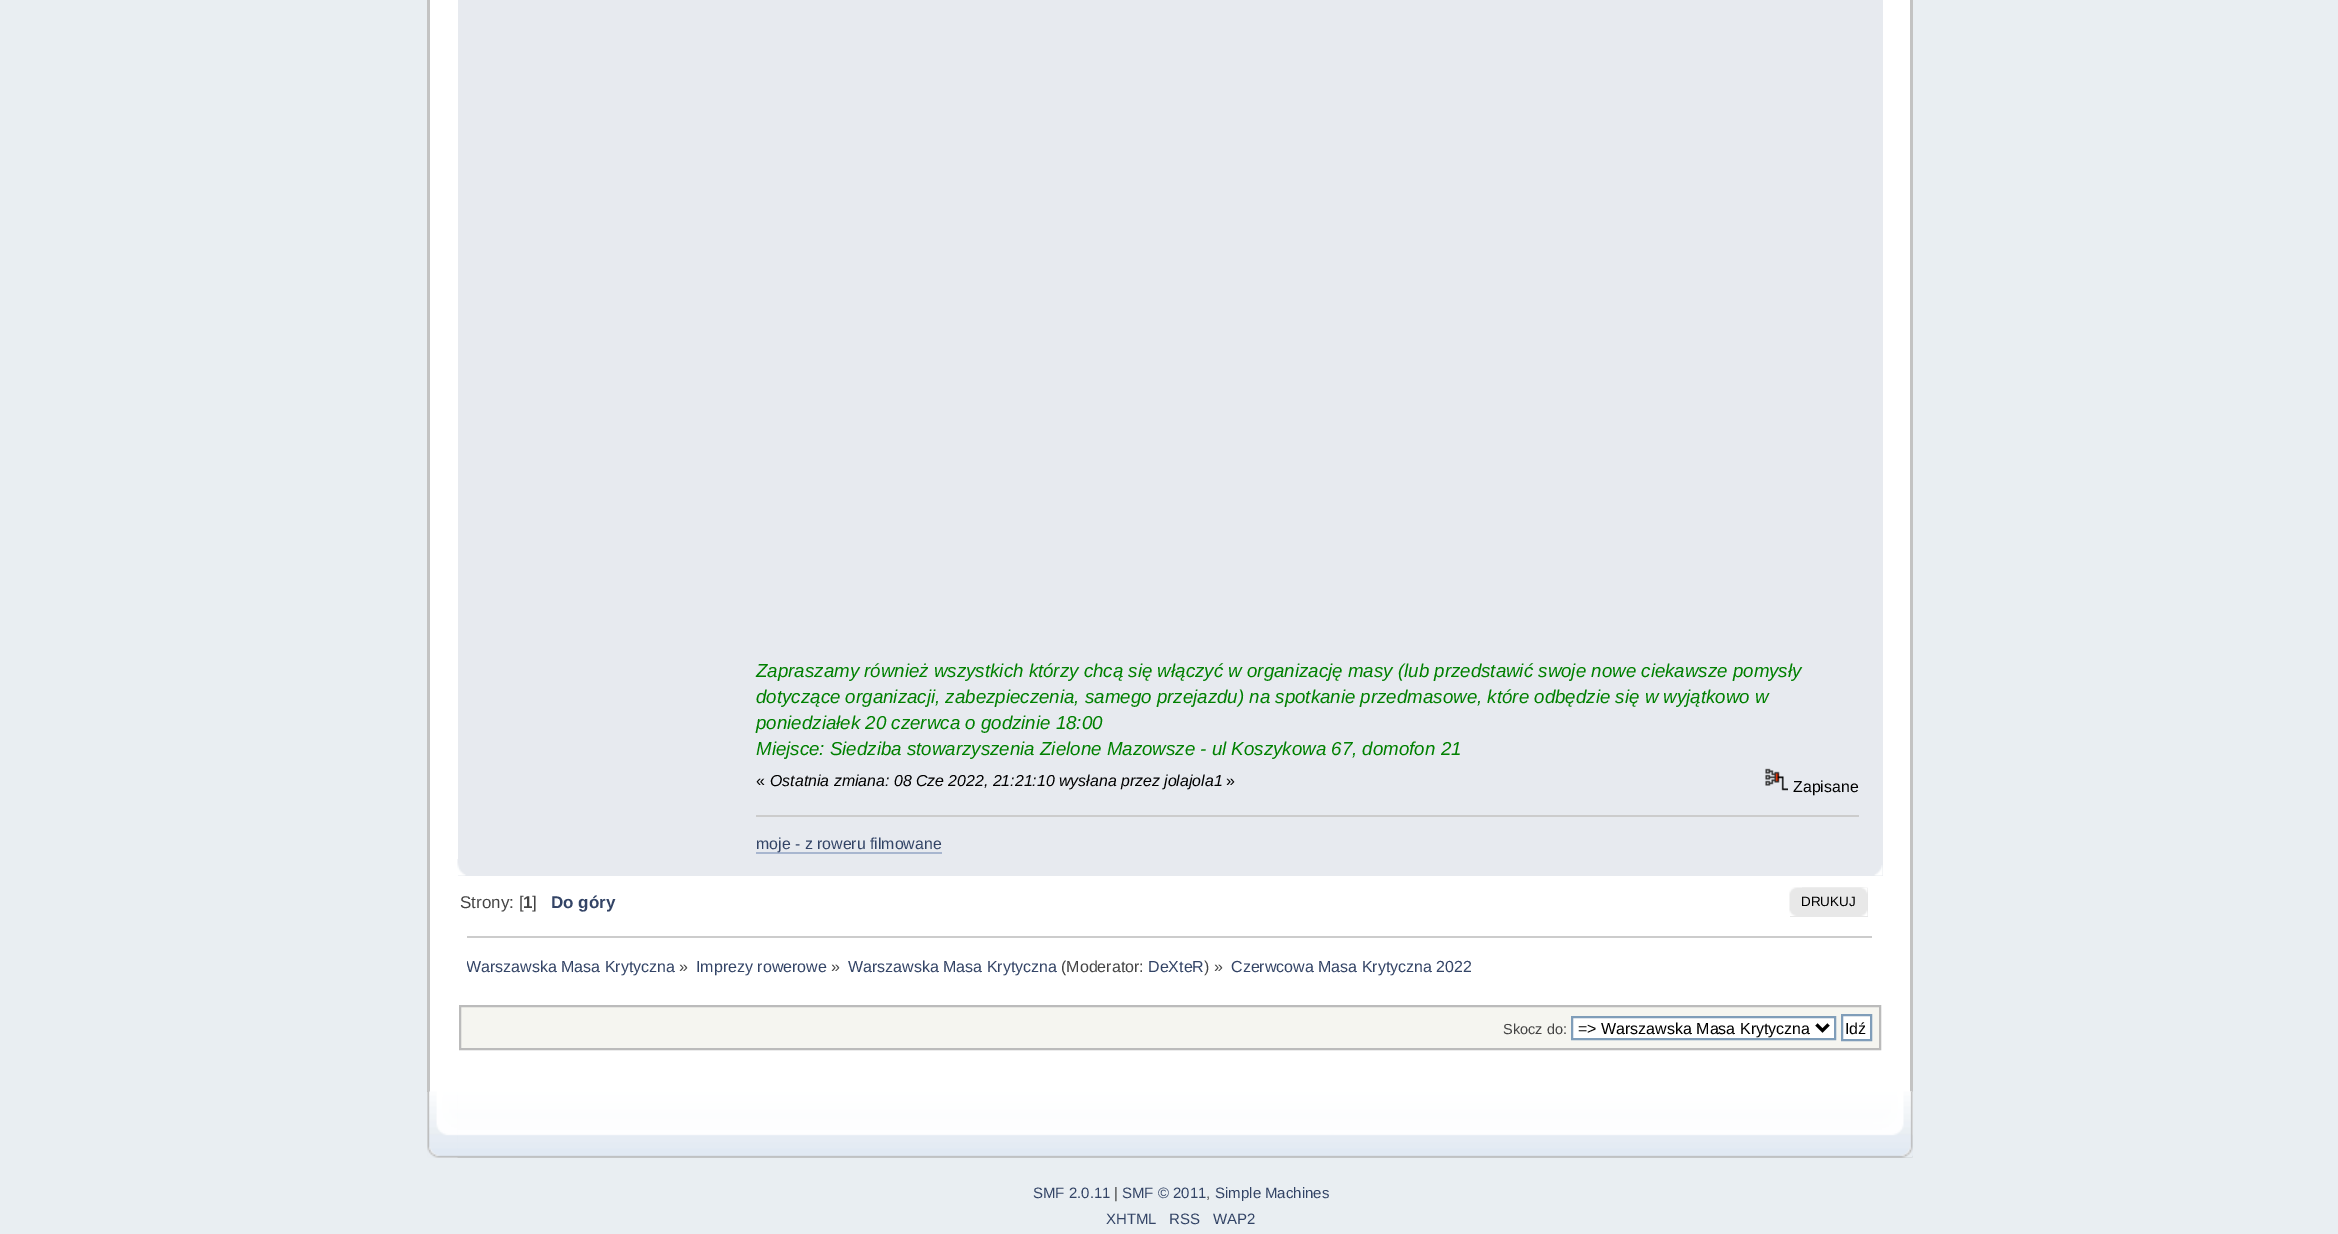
%!PS
<< /PageSize [2338 1234] >> setpagedevice
/rgb { 3 { 255 div 3 1 roll } repeat setrgbcolor } def
/font { [ exch dup neg 0 0 3 -1 roll 0 0 ] selectfont } def
/text { moveto show } def
/picture { 5 dict begin { /h /w /y /x /name } { exch def } forall
  gsave x y translate w h scale
  w h 8 [w 0 0 h 0 0] name (r) file false 3 colorimage grestore end } def
0 1234 translate 1 -1 scale
4 setmiterlimit
233 238 242 rgb
0 0 2338 1234 rectfill
255 255 255 rgb
430 0 1480 1092 rectfill
195 195 195 rgb
427 0 3 1092 rectfill
1910 0 3 1092 rectfill
231 234 239 rgb
458 0 1425 876 rectfill
(img_01.rgb) 1765 768 23 23 picture
204 204 204 rgb
756 815 1103 2 rectfill
168 182 207 rgb
756 852 186 2 rectfill
(img_02.rgb) 457 859 9 17 picture
(img_03.rgb) 1874 865 9 11 picture
232 232 232 rgb
1790 888 78 29 rectfill
(img_04.rgb) 1789 887 79 29 picture
(img_05.rgb) 1802 887 66 29 picture
204 204 204 rgb
467 936 1405 2 rectfill
245 245 240 rgb
460 1006 moveto 1420 0 rlineto 0 43 rlineto -1420 0 rlineto closepath gsave fill grestore
187 187 187 rgb
2 setlinewidth
stroke
255 255 255 rgb
1572 1017 moveto 263 0 rlineto 0 22 rlineto -263 0 rlineto closepath gsave fill grestore
127 157 185 rgb
stroke
0 0 0 rgb
3 setlinewidth
1816.5 1024.5 moveto 6 6 rlineto 6 -6 rlineto stroke
255 255 255 rgb
1842 1015 moveto 29 0 rlineto 0 25 rlineto -29 0 rlineto closepath gsave fill grestore
127 157 185 rgb
2 setlinewidth
stroke
(img_06.rgb) 427 1091 1486 67 picture
(img_07.rgb) 457 1091 1456 67 picture
/LiberationSans-Italic 18.72 font
0 128 0 rgb
(Zapraszamy również wszystkich którzy chcą się włączyć w organizację masy \(lub przedstawić swoje nowe ciekawsze pomysły) 756 677 text
(dotyczące organizacji, zabezpieczenia, samego przejazdu\) na spotkanie przedmasowe, które odbędzie się w wyjątkowo w) 756 703 text
(poniedziałek 20 czerwca o godzinie 18:00) 756 729 text
(Miejsce: Siedziba stowarzyszenia Zielone Mazowsze - ul Koszykowa 67, domofon 21) 756 755 text
/LiberationSans-Regular 15.9 font
0 0 0 rgb
(«) 756 786 text
/LiberationSans-Italic 15.9 font
(Ostatnia zmiana: 08 Cze 2022, 21:21:10 wysłana przez jolajola1) 770 786 text
/LiberationSans-Regular 15.9 font
(») 1226 786 text
(Zapisane) 1793 792 text
51 68 102 rgb
(moje - z roweru filmowane) 756 849 text
/LiberationSans-Regular 17 font
68 68 68 rgb
(Strony: [) 460 908 text
/LiberationSans-Bold 17 font
(1) 523 908 text
/LiberationSans-Regular 17 font
(]) 532 908 text
/LiberationSans-Bold 17 font
51 68 102 rgb
(Do góry) 551 908 text
/LiberationSans-Regular 13.5 font
0 0 0 rgb
(DRUKUJ) 1801 906 text
gsave
467 938 1405 49 rectclip
/LiberationSans-Regular 16 font
51 68 102 rgb
(Warszawska Masa Krytyczna) 466 972 text
grestore
/LiberationSans-Regular 16 font
68 68 68 rgb
(») 679 972 text
51 68 102 rgb
(Imprezy rowerowe) 696 972 text
68 68 68 rgb
(») 831 972 text
51 68 102 rgb
(Warszawska Masa Krytyczna) 848 972 text
68 68 68 rgb
(\(Moderator:) 1061 972 text
51 68 102 rgb
(DeXteR) 1148 972 text
68 68 68 rgb
(\) ») 1204 972 text
51 68 102 rgb
(Czerwcowa Masa Krytyczna 2022) 1231 972 text
/LiberationSans-Regular 14.5 font
68 68 68 rgb
(Skocz do:) 1503 1034 text
/LiberationSans-Regular 16 font
0 0 0 rgb
(=> Warszawska Masa Krytyczna) 1578 1034 text
(Idź) 1845 1034 text
/LiberationSans-Regular 15 font
51 68 102 rgb
(SMF 2.0.11) 1033 1198 text
68 68 68 rgb
(|) 1114 1198 text
51 68 102 rgb
(SMF © 2011) 1122 1198 text
68 68 68 rgb
(,) 1206 1198 text
51 68 102 rgb
(Simple Machines) 1215 1198 text
(XHTML) 1106 1224 text
(RSS) 1169 1224 text
(WAP2) 1213 1224 text
showpage
